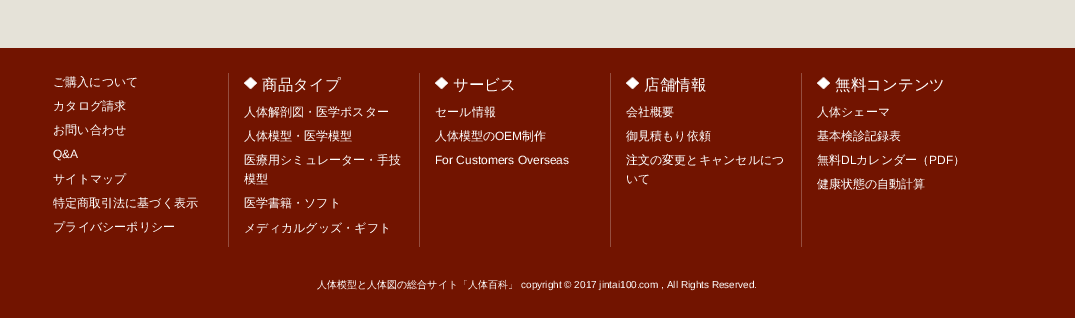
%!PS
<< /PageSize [1075 318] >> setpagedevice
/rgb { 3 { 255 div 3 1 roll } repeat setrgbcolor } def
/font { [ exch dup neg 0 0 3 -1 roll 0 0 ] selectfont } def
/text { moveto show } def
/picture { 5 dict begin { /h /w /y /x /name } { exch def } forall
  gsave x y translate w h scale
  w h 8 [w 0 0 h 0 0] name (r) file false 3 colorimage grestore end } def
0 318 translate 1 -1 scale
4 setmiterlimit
229 226 216 rgb
0 0 1075 318 rectfill
114 20 0 rgb
0 48 1075 270 rectfill
149 78 63 rgb
228 73 1 174 rectfill
(img_01.rgb) 244 77 13 13 picture
419 73 1 174 rectfill
(img_01.rgb) 435 77 13 13 picture
610 73 1 174 rectfill
(img_01.rgb) 626 77 13 13 picture
801 73 1 174 rectfill
(img_02.rgb) 817 77 13 13 picture
/WenQuanYiZenHei-Medium 12 font
255 255 255 rgb
(ご購入について) 53 86 text
(カタログ請求) 53 110 text
(お問い合わせ) 53 134 text
/LiberationSans-Regular 12 font
(Q&A) 53 158 text
/WenQuanYiZenHei-Medium 12 font
(サイトマップ) 53 183 text
(特定商取引法に基づく表示) 53 207 text
(プライバシーポリシー) 53 231 text
/WenQuanYiZenHei-Medium 15.5 font
(商品タイプ) 262 90 text
/WenQuanYiZenHei-Medium 12 font
(人体解剖図・医学ポスター) 244 116 text
(人体模型・医学模型) 244 140 text
(医療用シミュレーター・手技) 244 164 text
(模型) 244 183 text
(医学書籍・ソフト) 244 207 text
(メディカルグッズ・ギフト) 244 232 text
/WenQuanYiZenHei-Medium 15.5 font
(サービス) 453 90 text
/WenQuanYiZenHei-Medium 12 font
(セール情報) 435 116 text
(人体模型の) 435 140 text
/LiberationSans-Regular 12 font
(OEM) 495 140 text
/WenQuanYiZenHei-Medium 12 font
(制作) 522 140 text
/LiberationSans-Regular 12 font
(For Customers Overseas) 435 164 text
/WenQuanYiZenHei-Medium 15.5 font
(店舗情報) 644 90 text
/WenQuanYiZenHei-Medium 12 font
(会社概要) 626 116 text
(御見積もり依頼) 626 140 text
(注文の変更とキャンセルにつ) 626 164 text
(いて) 626 183 text
/WenQuanYiZenHei-Medium 15.5 font
(無料コンテンツ) 835 90 text
/WenQuanYiZenHei-Medium 12 font
(人体シェーマ) 817 116 text
(基本検診記録表) 817 140 text
(無料) 817 164 text
/LiberationSans-Regular 12 font
(DL) 841 164 text
/WenQuanYiZenHei-Medium 12 font
(カレンダー（) 856 164 text
/LiberationSans-Regular 12 font
(PDF) 929 164 text
/WenQuanYiZenHei-Medium 12 font
(）) 953 164 text
(健康状態の自動計算) 817 188 text
/WenQuanYiZenHei-Medium 10 font
(人体模型と人体図の総合サイト「人体百科」) 317 288 text
/LiberationSans-Regular 10 font
(copyright © 2017 jintai100.com , All Rights Reserved.) 521 288 text
showpage
